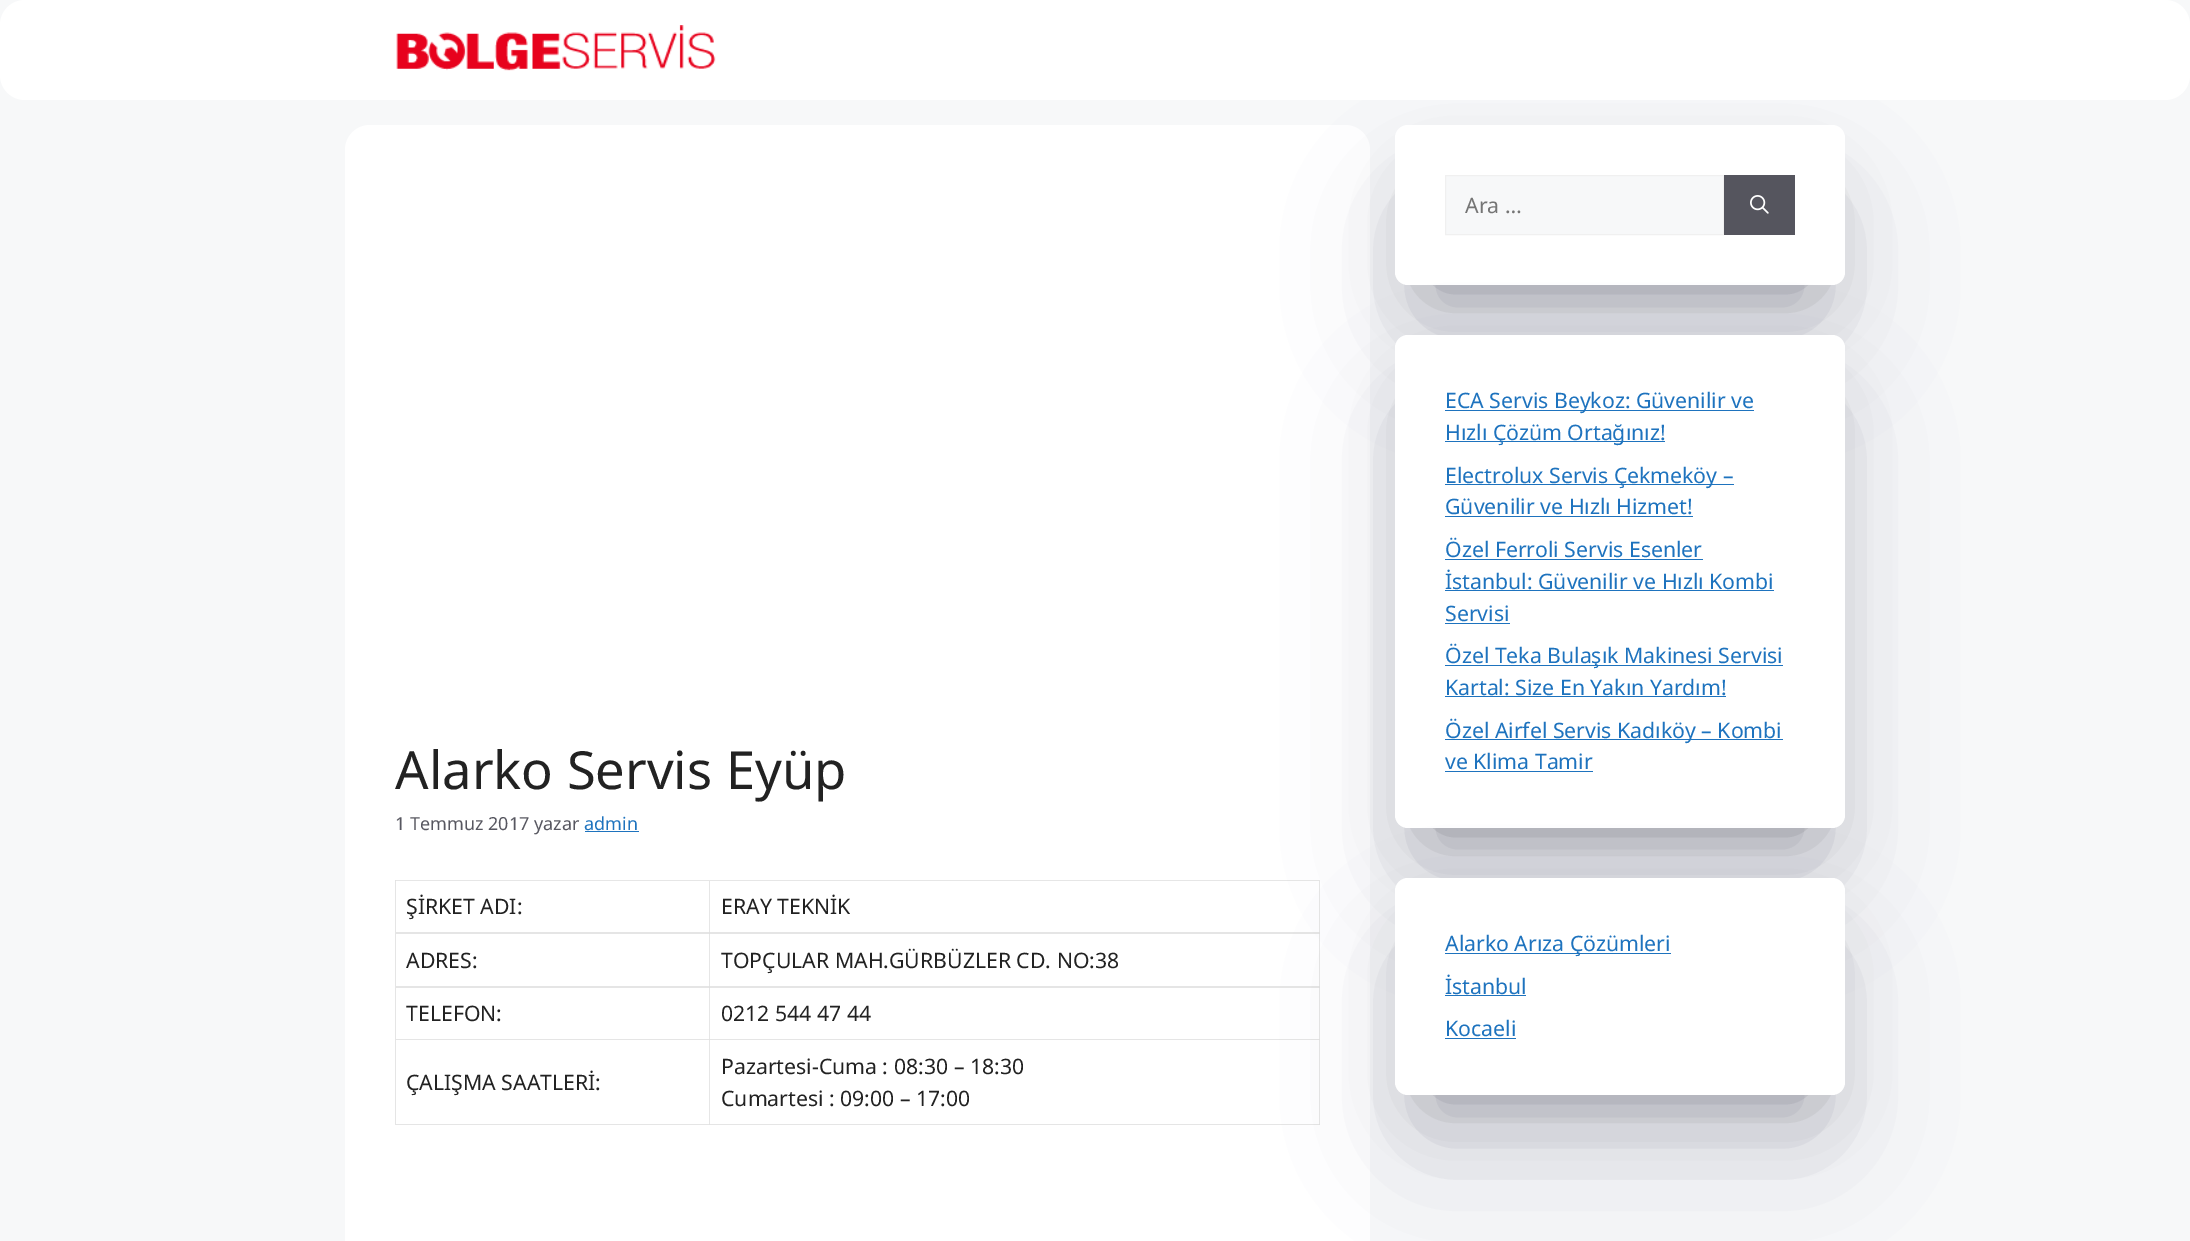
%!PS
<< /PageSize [2190 1241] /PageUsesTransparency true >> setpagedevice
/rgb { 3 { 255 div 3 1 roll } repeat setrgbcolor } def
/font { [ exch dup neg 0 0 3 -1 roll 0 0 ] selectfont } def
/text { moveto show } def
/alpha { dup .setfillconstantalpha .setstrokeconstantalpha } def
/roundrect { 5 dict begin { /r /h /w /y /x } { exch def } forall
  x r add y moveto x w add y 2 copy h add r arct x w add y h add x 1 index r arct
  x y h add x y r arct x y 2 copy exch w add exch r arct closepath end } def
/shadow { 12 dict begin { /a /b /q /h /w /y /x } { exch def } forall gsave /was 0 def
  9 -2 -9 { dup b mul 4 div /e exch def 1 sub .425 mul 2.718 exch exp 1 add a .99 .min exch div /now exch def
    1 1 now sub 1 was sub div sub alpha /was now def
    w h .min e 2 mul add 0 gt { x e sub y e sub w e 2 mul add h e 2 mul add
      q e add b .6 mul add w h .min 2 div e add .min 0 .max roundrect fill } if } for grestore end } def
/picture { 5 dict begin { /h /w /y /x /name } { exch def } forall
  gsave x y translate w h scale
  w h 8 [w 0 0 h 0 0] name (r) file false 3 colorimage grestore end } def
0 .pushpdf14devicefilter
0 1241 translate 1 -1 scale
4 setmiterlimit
247 248 249 rgb
0 0 2190 1241 rectfill
255 255 255 rgb
345 125 1025 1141 25 roundrect fill
0 0 0 rgb
1433 200 375 85 0 37.5 0.3 shadow
50 50 93 rgb
1420 213 400 110 0 62.5 0.25 shadow
255 255 255 rgb
0 0 2190 100 25 roundrect fill
(img_01.rgb) 396 25 320 46 picture
30 115 190 rgb
585 831 54 1 rectfill
230 230 230 rgb
395 880 moveto 925 0 rlineto 0 1 rlineto -924 0 rlineto closepath fill
0.1 alpha
0 0 0 rgb
395 1125 moveto 0 -245 rlineto 1 1 rlineto 0 244 rlineto closepath fill
1 alpha
230 230 230 rgb
710 881 moveto 0 53 rlineto -1 -2 rlineto 0 -51 rlineto closepath fill
0.1 alpha
0 0 0 rgb
710 934 moveto -314 0 rlineto 0 -2 rlineto 313 0 rlineto closepath fill
1 alpha
230 230 230 rgb
1320 881 moveto 0 53 rlineto -1 -2 rlineto 0 -51 rlineto closepath fill
0.1 alpha
0 0 0 rgb
1320 934 moveto -610 0 rlineto 0 -2 rlineto 609 0 rlineto closepath fill
1 alpha
230 230 230 rgb
710 934 moveto 0 54 rlineto -1 -2 rlineto 0 -52 rlineto closepath fill
0.1 alpha
0 0 0 rgb
710 988 moveto -314 0 rlineto 0 -2 rlineto 313 0 rlineto closepath fill
1 alpha
230 230 230 rgb
1320 934 moveto 0 54 rlineto -1 -2 rlineto 0 -52 rlineto closepath fill
0.1 alpha
0 0 0 rgb
1320 988 moveto -610 0 rlineto 0 -2 rlineto 609 0 rlineto closepath fill
1 alpha
230 230 230 rgb
710 988 moveto 0 52 rlineto -1 -1 rlineto 0 -51 rlineto closepath fill
0.1 alpha
0 0 0 rgb
710 1040 moveto -314 0 rlineto 0 -1 rlineto 313 0 rlineto closepath fill
1 alpha
230 230 230 rgb
1320 988 moveto 0 52 rlineto -1 -1 rlineto 0 -51 rlineto closepath fill
0.1 alpha
0 0 0 rgb
1320 1040 moveto -610 0 rlineto 0 -1 rlineto 609 0 rlineto closepath fill
1 alpha
230 230 230 rgb
710 1040 moveto 0 85 rlineto -1 -1 rlineto 0 -84 rlineto closepath fill
0.1 alpha
0 0 0 rgb
710 1125 moveto -314 0 rlineto 0 -1 rlineto 313 0 rlineto closepath fill
1 alpha
230 230 230 rgb
1320 1040 moveto 0 85 rlineto -1 -1 rlineto 0 -84 rlineto closepath fill
0.1 alpha
0 0 0 rgb
1320 1125 moveto -610 0 rlineto 0 -1 rlineto 609 0 rlineto closepath fill
1 alpha
255 255 255 rgb
1395 125 450 160 13 roundrect fill
50 50 93 rgb
1420 423 400 442 0 62.5 0.25 shadow
247 248 249 rgb
1445.5 175.5 moveto 278 0 rlineto 0 59 rlineto -278 0 rlineto closepath gsave fill grestore
240 240 240 rgb
stroke
85 85 94 rgb
1724 175 71 60 rectfill
(img_02.rgb) 1750 195 19 19 picture
0 0 0 rgb
1433 410 375 418 0 37.5 0.3 shadow
255 255 255 rgb
1395 335 450 493 13 roundrect fill
30 115 190 rgb
1445 410 309 1 rectfill
1445 441 220 1 rectfill
1445 484 289 1 rectfill
1445 516 248 1 rectfill
1445 559 258 1 rectfill
1445 590 329 1 rectfill
1445 623 65 1 rectfill
1445 665 338 1 rectfill
1445 696 281 1 rectfill
1445 739 338 1 rectfill
1445 771 148 1 rectfill
0 0 0 rgb
1433 953 375 142 0 37.5 0.3 shadow
50 50 93 rgb
1420 965 400 168 0 62.5 0.25 shadow
255 255 255 rgb
1395 878 450 217 13 roundrect fill
30 115 190 rgb
1445 953 226 1 rectfill
1445 995 81 1 rectfill
1445 1038 71 1 rectfill
/NotoSans-Regular 52.5 font
34 34 34 rgb
(Alarko Servis Eyüp) 395 789 text
/NotoSans-Regular 18 font
87 87 96 rgb
(1 Temmuz 2017 yazar) 395 830 text
30 115 190 rgb
(admin) 584 830 text
/NotoSans-Regular 21.25 font
34 34 34 rgb
(ŞİRKET ADI:) 406 914 text
(ERAY TEKNİK) 721 914 text
(ADRES:) 406 968 text
(TOPÇULAR MAH.GÜRBÜZLER CD. NO:38) 721 968 text
(TELEFON:) 406 1021 text
(0212 544 47 44) 721 1021 text
(ÇALIŞMA SAATLERİ:) 406 1090 text
(Pazartesi-Cuma : 08:30 – 18:30) 721 1074 text
(Cumartesi : 09:00 – 17:00) 721 1106 text
117 117 117 rgb
(Ara …) 1465 213 text
30 115 190 rgb
(ECA Servis Beykoz: Güvenilir ve) 1445 408 text
(Hızlı Çözüm Ortağınız!) 1445 440 text
(Electrolux Servis Çekmeköy –) 1445 483 text
(Güvenilir ve Hızlı Hizmet!) 1445 514 text
(Özel Ferroli Servis Esenler) 1445 557 text
(İstanbul: Güvenilir ve Hızlı Kombi) 1445 589 text
(Servisi) 1445 621 text
(Özel Teka Bulaşık Makinesi Servisi) 1445 663 text
(Kartal: Size En Yakın Yardım!) 1445 695 text
(Özel Airfel Servis Kadıköy – Kombi) 1445 738 text
(ve Klima Tamir) 1445 769 text
(Alarko Arıza Çözümleri) 1445 951 text
(İstanbul) 1445 994 text
(Kocaeli) 1445 1036 text
.poppdf14devicefilter showpage
